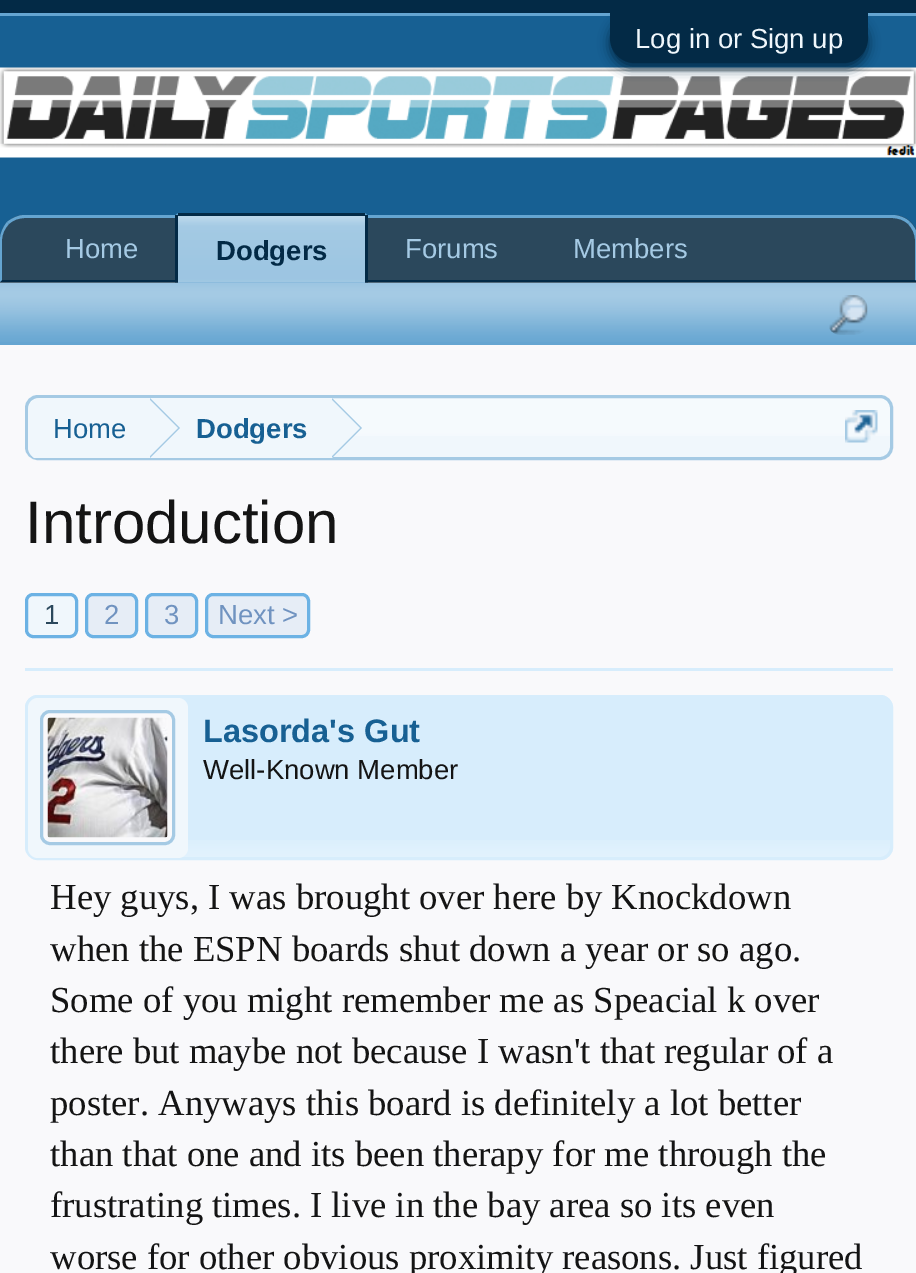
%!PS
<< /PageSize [916 1273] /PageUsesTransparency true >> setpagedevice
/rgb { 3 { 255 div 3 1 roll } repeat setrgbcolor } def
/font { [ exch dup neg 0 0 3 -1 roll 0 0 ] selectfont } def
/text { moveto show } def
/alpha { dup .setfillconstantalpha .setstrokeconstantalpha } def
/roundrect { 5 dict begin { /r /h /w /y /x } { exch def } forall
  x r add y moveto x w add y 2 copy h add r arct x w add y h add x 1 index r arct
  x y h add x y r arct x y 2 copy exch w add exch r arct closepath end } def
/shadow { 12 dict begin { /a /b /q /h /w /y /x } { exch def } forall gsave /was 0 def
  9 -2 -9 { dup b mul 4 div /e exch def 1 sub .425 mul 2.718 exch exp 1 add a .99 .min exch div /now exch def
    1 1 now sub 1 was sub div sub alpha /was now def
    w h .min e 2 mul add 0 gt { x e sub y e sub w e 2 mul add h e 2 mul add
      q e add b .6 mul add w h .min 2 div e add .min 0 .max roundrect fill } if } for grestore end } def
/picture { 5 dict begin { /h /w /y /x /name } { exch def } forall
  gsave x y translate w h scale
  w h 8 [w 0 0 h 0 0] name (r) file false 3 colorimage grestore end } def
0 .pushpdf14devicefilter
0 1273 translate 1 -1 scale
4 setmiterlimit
23 96 147 rgb
0 0 916 1273 rectfill
3 42 70 rgb
0 0 916 13 rectfill
101 165 209 rgb
0 13 916 3 rectfill
(img_01.rgb) 0 67 916 91 picture
3 42 70 rgb
610 18 258 50 25 6 1 shadow
610 13 moveto 258 0 rlineto 0 25 rlineto 0 14 -11 25 -25 25 rcurveto -208 0 rlineto -14 0 -25 -11 -25 -25 rcurveto closepath fill
43 72 92 rgb
25 215 moveto 868 0 rlineto 14 0 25 11 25 25 rcurveto 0 43 rlineto -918 0 rlineto 0 -43 rlineto 0 -14 11 -25 25 -25 rcurveto closepath fill
101 165 209 rgb
25 215 moveto -7 0 -13 3 -18 7 rcurveto 2 2 rlineto 4 -4 10 -6 16 -6 rcurveto 867 0 rlineto 6 0 12 2 16 6 rcurveto 2 -2 rlineto -4 -4 -11 -7 -18 -7 rcurveto closepath fill
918 282 moveto -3 -2 rlineto 0 -40 rlineto 0 -6 -3 -12 -7 -16 rcurveto 2 -2 rlineto 4 4 6 8 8 13 rcurveto closepath fill
3 42 70 rgb
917 282 moveto -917 0 rlineto 2 -2 rlineto 913 0 rlineto closepath fill
101 165 209 rgb
0 240 moveto 0 42 rlineto 2 -2 rlineto 0 -40 rlineto 0 -6 3 -12 7 -16 rcurveto -2 -2 rlineto -4 5 -7 11 -7 18 rcurveto closepath fill
180 213 moveto 183 0 rlineto 3 0 5 2 5 5 rcurveto 0 65 rlineto -193 0 rlineto 0 -65 rlineto 0 -3 2 -5 5 -5 rcurveto closepath fill
(img_02.rgb) 178 216 187 67 picture
3 42 70 rgb
178 213 187 3 rectfill
365 215 3 68 rectfill
175 215 3 68 rectfill
101 165 209 rgb
0 283 916 62 rectfill
(img_03.rgb) 0 282 916 60 picture
(img_04.rgb) 829 295 39 40 picture
249 249 251 rgb
0 345 916 928 rectfill
240 247 252 rgb
25 395 868 65 13 roundrect fill
(img_05.rgb) 25 398 867 38 picture
165 202 228 rgb
3 setlinewidth
26.5 396.5 865 62 11.5 roundrect stroke
gsave
28 398 862 60 10 roundrect clip newpath
240 247 252 rgb
41 398 moveto 109 0 rlineto 0 62 rlineto -109 0 rlineto -7 0 -13 -6 -13 -13 rcurveto 0 -36 rlineto 0 -7 6 -13 13 -13 rcurveto closepath fill
grestore
240 247 252 rgb
150 398 183 60 rectfill
165 202 228 rgb
150 458 moveto 0 -60 rlineto 30 30 rlineto closepath fill
240 247 252 rgb
148 458 moveto 0 -60 rlineto 30 30 rlineto closepath fill
165 202 228 rgb
332 458 moveto 0 -60 rlineto 30 30 rlineto closepath fill
240 247 252 rgb
330 458 moveto 0 -60 rlineto 30 30 rlineto closepath fill
(img_06.rgb) 845 410 33 33 picture
26.5 594.5 50 42 6.5 roundrect gsave fill grestore
108 178 228 rgb
stroke
230 237 246 rgb
86.5 594.5 50 42 6.5 roundrect gsave fill grestore
108 178 228 rgb
stroke
230 237 246 rgb
146.5 594.5 50 42 6.5 roundrect gsave fill grestore
108 178 228 rgb
stroke
230 237 246 rgb
206.5 594.5 102 42 6.5 roundrect gsave fill grestore
108 178 228 rgb
stroke
215 237 252 rgb
25 668 868 3 rectfill
25 695 868 165 13 roundrect fill
(img_07.rgb) 25 840 867 18 picture
26.5 696.5 865 162 11.5 roundrect stroke
240 247 252 rgb
28 698 160 160 10 roundrect fill
249 249 251 rgb
41.5 711.5 132 132 8.5 roundrect gsave fill grestore
165 202 228 rgb
stroke
(img_08.rgb) 47 717 121 121 picture
/LiberationSans-Regular 27.5 font
240 247 252 rgb
(Log in or Sign up) 635 48 text
165 202 228 rgb
(Home) 65 258 text
/LiberationSans-Bold 27.5 font
3 42 70 rgb
(Dodgers) 216 260 text
/LiberationSans-Regular 27.5 font
165 202 228 rgb
(Forums) 405 258 text
(Members) 573 258 text
23 96 147 rgb
(Home) 53 438 text
/LiberationSans-Bold 27.5 font
(Dodgers) 196 438 text
/LiberationSans-Regular 60 font
20 20 20 rgb
(Introduction) 25 543 text
/LiberationSans-Regular 27.5 font
43 72 92 rgb
(1) 44 624 text
112 147 192 rgb
(2) 104 624 text
(3) 164 624 text
(Next >) 218 624 text
/LiberationSans-Bold 32.5 font
23 96 147 rgb
(Lasorda's Gut) 203 742 text
/LiberationSans-Regular 27.5 font
20 20 20 rgb
(Well-Known Member) 203 779 text
/LiberationSerif-Regular 36.7 font
(Hey guys, I was brought over here by Knockdown) 50 909 text
(when the ESPN boards shut down a year or so ago.) 50 961 text
(Some of you might remember me as Speacial k over) 50 1012 text
(there but maybe not because I wasn't that regular of a) 50 1063 text
(poster. Anyways this board is definitely a lot better) 50 1115 text
(than that one and its been therapy for me through the) 50 1166 text
(frustrating times. I live in the bay area so its even) 50 1217 text
(worse for other obvious proximity) 50 1269 text
(reasons. Just figured) 562 1269 text
.poppdf14devicefilter showpage
